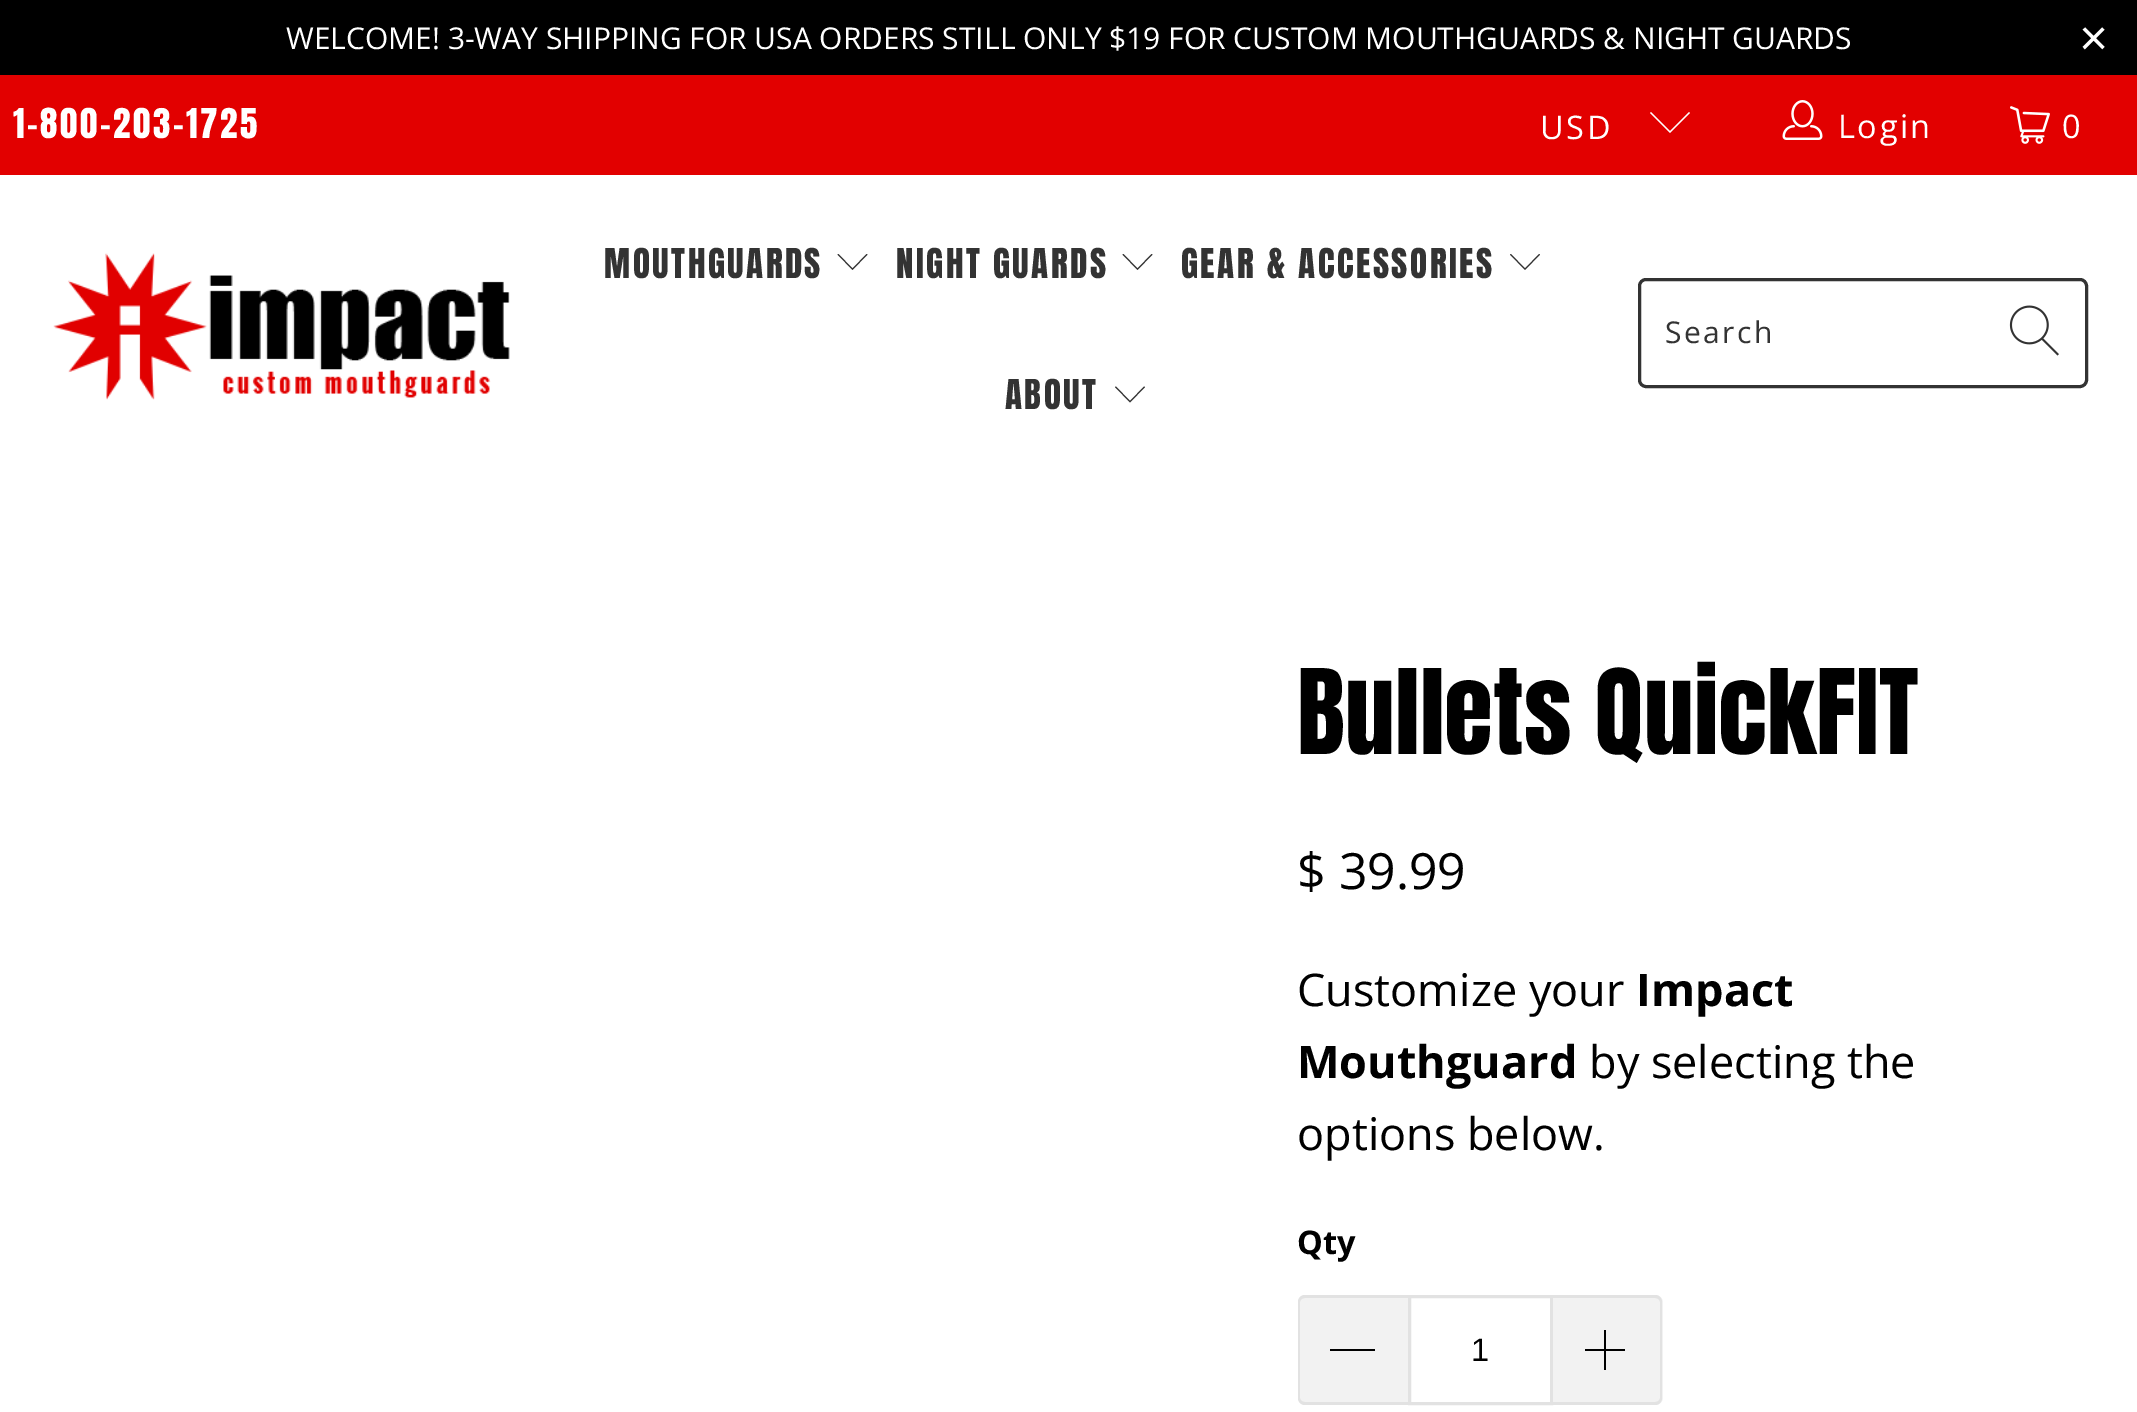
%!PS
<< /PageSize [2137 1412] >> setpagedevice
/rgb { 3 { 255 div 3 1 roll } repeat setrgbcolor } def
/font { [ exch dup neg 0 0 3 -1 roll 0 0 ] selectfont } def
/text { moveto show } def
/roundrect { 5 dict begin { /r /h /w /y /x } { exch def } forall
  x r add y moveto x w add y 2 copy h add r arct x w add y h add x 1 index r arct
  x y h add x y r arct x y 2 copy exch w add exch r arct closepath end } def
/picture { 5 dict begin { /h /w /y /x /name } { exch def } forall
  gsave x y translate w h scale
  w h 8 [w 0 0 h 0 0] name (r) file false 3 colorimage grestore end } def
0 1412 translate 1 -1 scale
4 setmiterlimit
255 255 255 rgb
0 0 2137 1412 rectfill
0 0 0 rgb
0 0 2137 75 rectfill
226 0 0 rgb
0 75 2137 100 rectfill
255 255 255 rgb
1670 133 moveto -20 -20 rlineto 1 -1 rlineto 19 19 rlineto 19 -19 rlineto 1 1 rlineto closepath fill
(img_01.rgb) 1782 100 41 40 picture
(img_02.rgb) 2010 106 40 38 picture
(img_03.rgb) 53 253 457 147 picture
51 51 51 rgb
852.5 270 moveto -15 -15.5 rlineto 1 -0.5 rlineto 14 14.5 rlineto 14 -14.5 rlineto 1 0.5 rlineto closepath fill
1137.5 270 moveto -15 -15.5 rlineto 1 -0.5 rlineto 14 14.5 rlineto 14 -14.5 rlineto 1 0.5 rlineto closepath fill
1525 270 moveto -15 -15.5 rlineto 1 -0.5 rlineto 14 14.5 rlineto 14 -14.5 rlineto 1 0.5 rlineto closepath fill
1130 402.5 moveto -15 -15.5 rlineto 1 -0.5 rlineto 14 14.5 rlineto 14 -14.5 rlineto 1 0.5 rlineto closepath fill
3 setlinewidth
1639.5 279.5 447 107 6.5 roundrect stroke
(img_04.rgb) 2009 305 50 51 picture
242 242 242 rgb
1306 1295 moveto 102 0 rlineto 0 110 rlineto -102 0 rlineto -4.5 0 -8 -3.5 -8 -8 rcurveto 0 -94 rlineto 0 -4.5 3.5 -8 8 -8 rcurveto closepath fill
226 226 226 rgb
1305 1295 moveto 103 0 rlineto 0 110 rlineto -103 0 rlineto -4 0 -7 -3 -7 -7 rcurveto 0 -96 rlineto 0 -4 3 -7 7 -7 rcurveto closepath 1305 1298 moveto 103 0 rlineto 0 104 rlineto -103 0 rlineto -3 0 -5 -2 -5 -4 rcurveto 0 -96 rlineto 0 -2 2 -4 5 -4 rcurveto closepath eofill
0 0 0 rgb
1330 1349 45 2 rectfill
226 226 226 rgb
1409.5 1296.5 142 107 rectstroke
242 242 242 rgb
1553 1295 moveto 102 0 rlineto 4.5 0 8 3.5 8 8 rcurveto 0 94 rlineto 0 4.5 -3.5 8 -8 8 rcurveto -102 0 rlineto closepath fill
226 226 226 rgb
1552 1295 moveto 103 0 rlineto 4 0 7 3 7 7 rcurveto 0 96 rlineto 0 4 -3 7 -7 7 rcurveto -103 0 rlineto closepath 1552 1298 moveto 103 0 rlineto 3 0 5 2 5 4 rcurveto 0 96 rlineto 0 2 -2 4 -5 4 rcurveto -103 0 rlineto closepath eofill
0 0 0 rgb
1625 1349 moveto -19 0 rlineto 0 -19 rlineto -2 0 rlineto 0 19 rlineto -19 0 rlineto 0 2 rlineto 19 0 rlineto 0 19 rlineto 2 0 rlineto 0 -19 rlineto 19 0 rlineto closepath fill
/OpenSans-Regular 30 font
255 255 255 rgb
(WELCOME! 3-WAY SHIPPING FOR USA ORDERS STILL ONLY $19 FOR CUSTOM MOUTHGUARDS & NIGHT GUARDS) 286 49 text
/LiberationSans-Regular 50 font
(×) 2079 55 text
/Anton-Regular 35 font
13 138 moveto 2.5 0 (1-800-203-1725) ashow
/OpenSans-Regular 32.5 font
1540 139 moveto 2.5 0 (USD) ashow
1838 138 moveto 2.5 0 (Login) ashow
2062 138 moveto 2.5 0 (0) ashow
/Anton-Regular 35 font
51 51 51 rgb
604 278 moveto 2.5 0 (MOUTHGUARDS) ashow
896 278 moveto 2.5 0 (NIGHT GUARDS) ashow
1181 278 moveto 2.5 0 (GEAR & ACCESSORIES) ashow
1005 409 moveto 2.5 0 (ABOUT) ashow
/OpenSans-Regular 30 font
1665 343 moveto 2.5 0 (Search) ashow
/Anton-Regular 100 font
0 0 0 rgb
(Bullets QuickFIT) 1297 754 text
/OpenSans-Regular 50 font
($ 39.99) 1297 889 text
/OpenSans-Regular 45 font
(Customize your) 1297 1006 text
/OpenSans-Bold 45 font
(Impact) 1636 1006 text
(Mouthguard) 1297 1078 text
/OpenSans-Regular 45 font
(by selecting the) 1589 1078 text
(options below.) 1297 1150 text
/OpenSans-Bold 32.5 font
(Qty) 1297 1254 text
/LiberationSans-Regular 32.5 font
(1) 1471 1361 text
showpage
